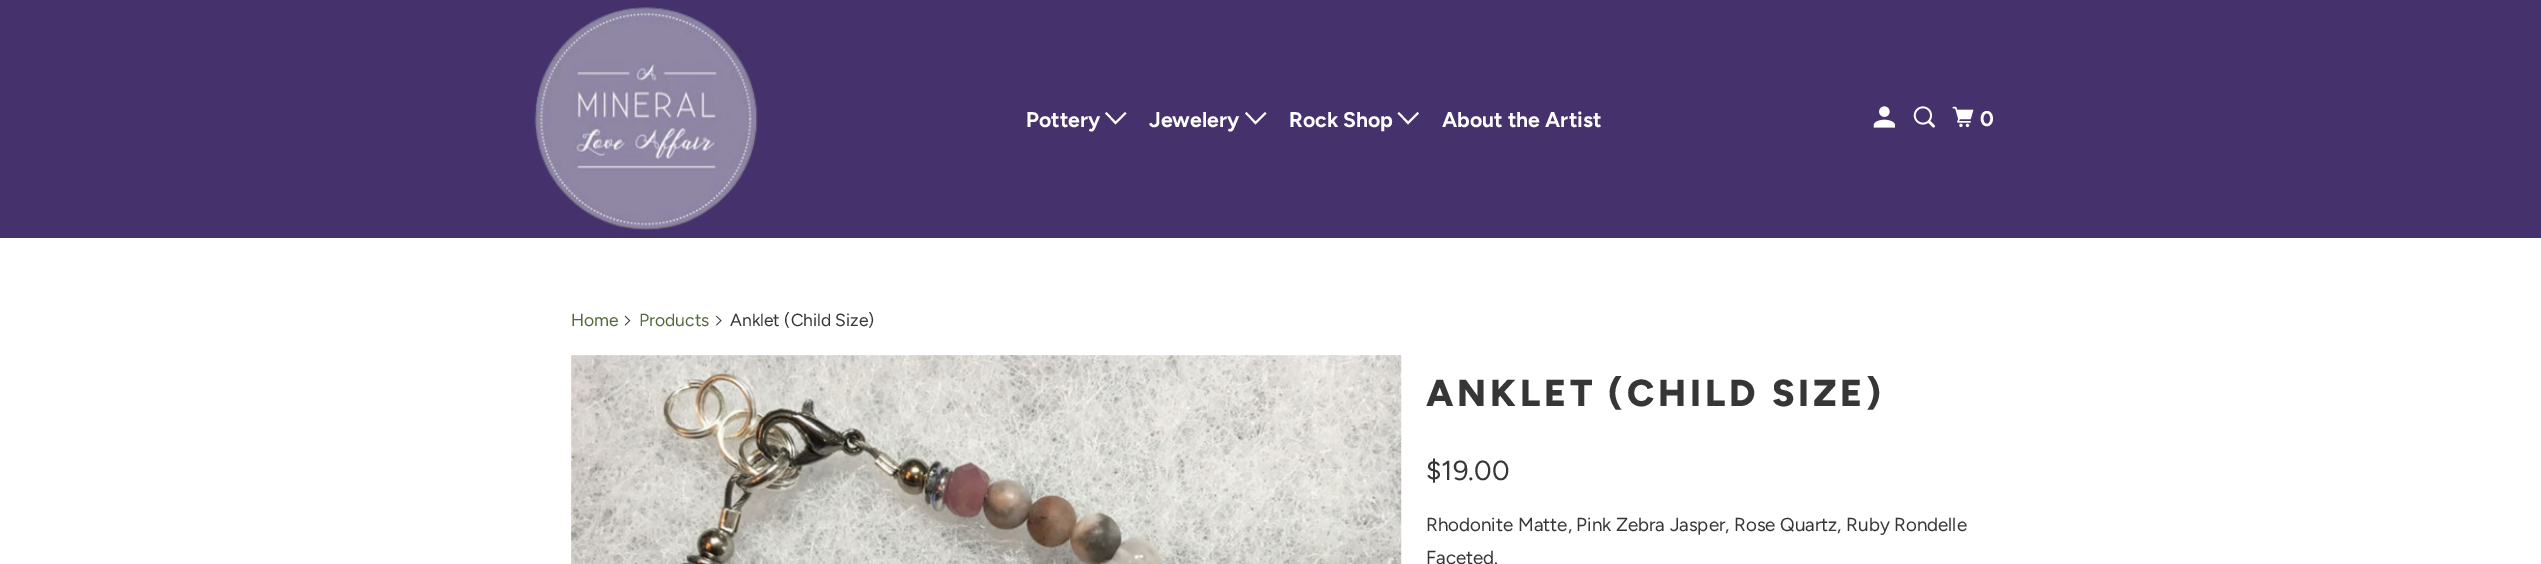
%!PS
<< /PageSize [2541 564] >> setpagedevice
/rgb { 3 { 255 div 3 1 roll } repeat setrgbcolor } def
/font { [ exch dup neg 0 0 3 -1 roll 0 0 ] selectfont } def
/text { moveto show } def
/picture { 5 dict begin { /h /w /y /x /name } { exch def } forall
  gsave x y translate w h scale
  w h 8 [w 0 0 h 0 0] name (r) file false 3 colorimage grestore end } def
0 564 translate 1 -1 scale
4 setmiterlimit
255 255 255 rgb
0 0 2541 564 rectfill
69 50 108 rgb
0 0 2541 238 rectfill
(img_01.rgb) 534 7 224 223 picture
255 255 255 rgb
1110.5 119 moveto -5.5 -5.5 rlineto 1.5 -1.5 rlineto 9 9.5 rlineto 9.5 -9.5 rlineto 1.5 1.5 rlineto -11 11 rlineto closepath fill
1250.5 119 moveto -5.5 -5.5 rlineto 1.5 -1.5 rlineto 9 9.5 rlineto 9.5 -9.5 rlineto 1.5 1.5 rlineto -11 11 rlineto closepath fill
1403 119 moveto -5.5 -5.5 rlineto 1.5 -1.5 rlineto 9 9.5 rlineto 9.5 -9.5 rlineto 1.5 1.5 rlineto -11 11 rlineto closepath fill
(img_02.rgb) 1873 106 22 22 picture
(img_03.rgb) 1913 106 22 22 picture
(img_04.rgb) 1952 106 22 22 picture
(img_05.rgb) 624 315 7 11 picture
(img_06.rgb) 716 315 6 11 picture
(img_07.rgb) 571 355 831 209 picture
/Figtree-Bold 21.25 font
(Pottery) 1026 127 text
(Jewelery) 1149 127 text
(Rock Shop) 1289 127 text
(About the Artist) 1442 127 text
(0) 1980 126 text
/Figtree-Regular 17.5 font
84 106 58 rgb
(Home) 571 326 text
(Products) 639 326 text
54 54 54 rgb
(Anklet \(Child Size\)) 730 326 text
/Figtree-ExtraBold 37.5 font
1426 406 moveto 3.75 0 (ANKLET \(CHILD SIZE\)) ashow
/Figtree-Regular 27.5 font
($19.00) 1426 480 text
/Figtree-Regular 18.75 font
(Rhodonite Matte, Pink Zebra Jasper, Rose Quartz, Ruby Rondelle) 1426 531 text
(Faceted.) 1426 564 text
showpage
